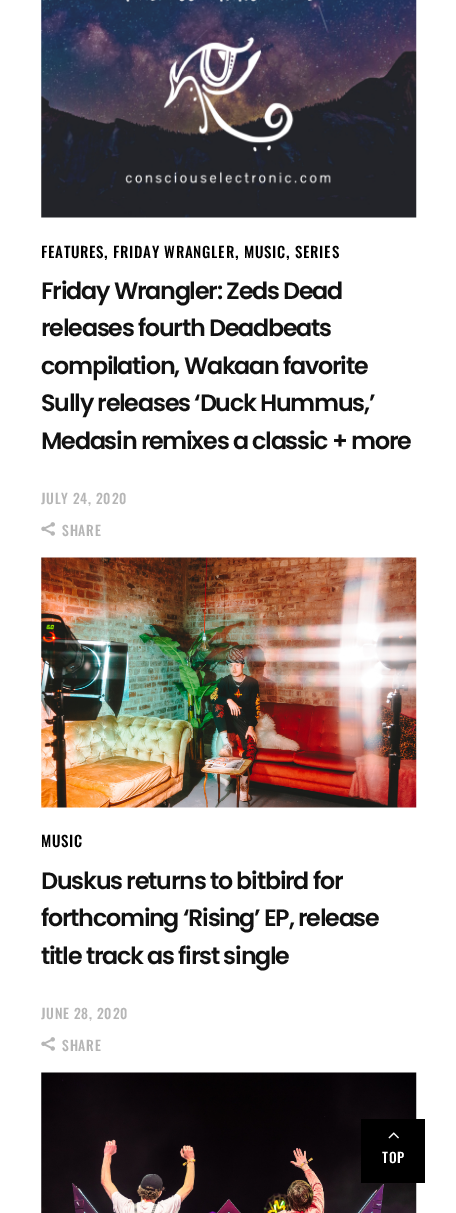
%!PS
<< /PageSize [456 1213] >> setpagedevice
/rgb { 3 { 255 div 3 1 roll } repeat setrgbcolor } def
/font { [ exch dup neg 0 0 3 -1 roll 0 0 ] selectfont } def
/picture { 5 dict begin { /h /w /y /x /name } { exch def } forall
  gsave x y translate w h scale
  w h 8 [w 0 0 h 0 0] name (r) file false 3 colorimage grestore end } def
0 1213 translate 1 -1 scale
4 setmiterlimit
255 255 255 rgb
0 0 456 1213 rectfill
(img_01.rgb) 41 0 376 218 picture
(img_02.rgb) 41 522 14 14 picture
(img_03.rgb) 41 557 376 251 picture
(img_02.rgb) 41 1037 14 14 picture
(img_04.rgb) 41 1072 376 141 picture
0 0 0 rgb
361 1119 64 64 rectfill
(img_05.rgb) 388 1132 11 7 picture
/Oswald-Medium 15 font
41 258 moveto 0.75 0 (FEATURES) ashow
/Oswald-Bold 15 font
104 258 moveto 0.75 0 (,) ashow
/Oswald-Medium 15 font
113 258 moveto 0.75 0 (FRIDAY WRANGLER) ashow
/Oswald-Bold 15 font
235 258 moveto 0.75 0 (,) ashow
/Oswald-Medium 15 font
244 258 moveto 0.75 0 (MUSIC) ashow
/Oswald-Bold 15 font
286 258 moveto 0.75 0 (,) ashow
/Oswald-Medium 15 font
295 258 moveto 0.75 0 (SERIES) ashow
/Poppins-SemiBold 23.75 font
18 18 18 rgb
41 299 moveto -1.2 0 (Friday Wrangler: Zeds Dead) ashow
41 336 moveto -1.2 0 (releases fourth Deadbeats) ashow
41 374 moveto -1.2 0 (compilation, Wakaan favorite) ashow
41 411 moveto -1.2 0 (Sully releases ‘Duck Hummus,’) ashow
41 449 moveto -1.2 0 (Medasin remixes a classic + more) ashow
/Oswald-Medium 13.75 font
182 182 182 rgb
41 504 moveto 0.75 0 (JULY 24, 2020) ashow
62 536 moveto 0.75 0 (SHARE) ashow
/Oswald-Medium 15 font
0 0 0 rgb
41 847 moveto 0.75 0 (MUSIC) ashow
/Poppins-SemiBold 23.75 font
18 18 18 rgb
41 889 moveto -1.2 0 (Duskus returns to bitbird for) ashow
41 926 moveto -1.2 0 (forthcoming ‘Rising’ EP, release) ashow
41 964 moveto -1.2 0 (title track as first single) ashow
/Oswald-Medium 13.75 font
182 182 182 rgb
41 1019 moveto 0.75 0 (JUNE 28, 2020) ashow
62 1051 moveto 0.75 0 (SHARE) ashow
255 255 255 rgb
382 1163 moveto 0.75 0 (TOP) ashow
showpage
